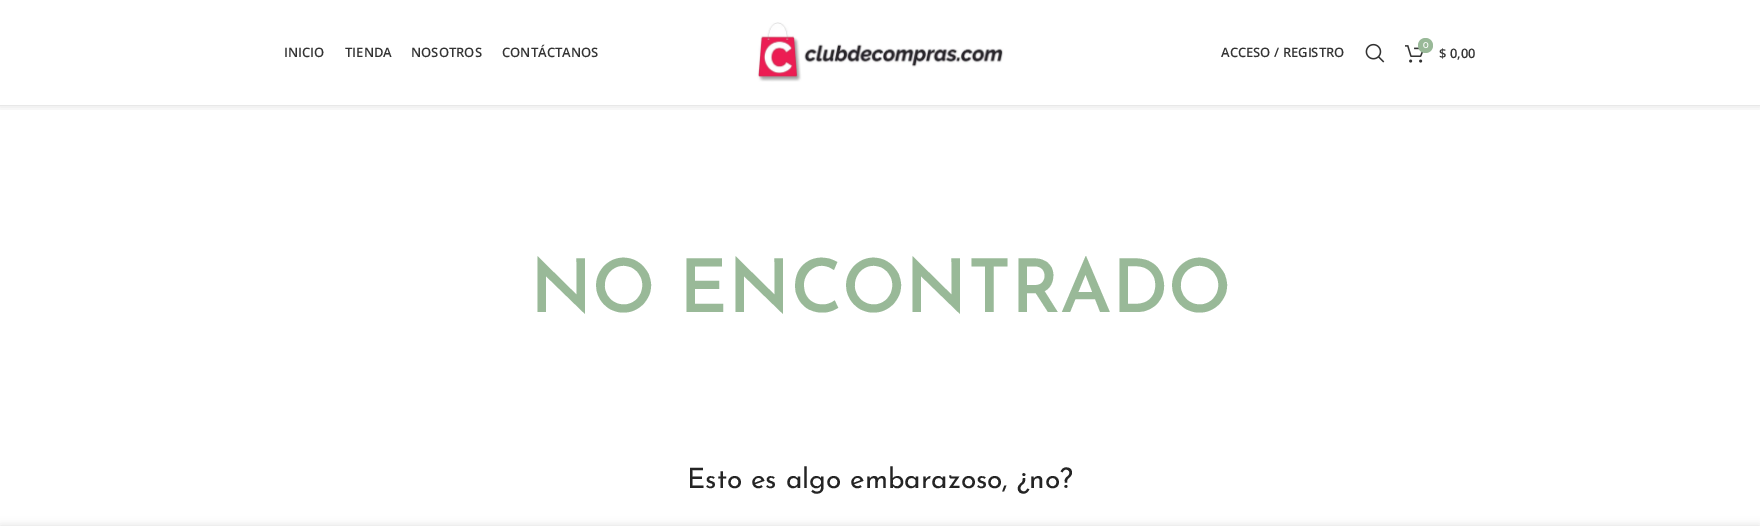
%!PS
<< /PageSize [1760 526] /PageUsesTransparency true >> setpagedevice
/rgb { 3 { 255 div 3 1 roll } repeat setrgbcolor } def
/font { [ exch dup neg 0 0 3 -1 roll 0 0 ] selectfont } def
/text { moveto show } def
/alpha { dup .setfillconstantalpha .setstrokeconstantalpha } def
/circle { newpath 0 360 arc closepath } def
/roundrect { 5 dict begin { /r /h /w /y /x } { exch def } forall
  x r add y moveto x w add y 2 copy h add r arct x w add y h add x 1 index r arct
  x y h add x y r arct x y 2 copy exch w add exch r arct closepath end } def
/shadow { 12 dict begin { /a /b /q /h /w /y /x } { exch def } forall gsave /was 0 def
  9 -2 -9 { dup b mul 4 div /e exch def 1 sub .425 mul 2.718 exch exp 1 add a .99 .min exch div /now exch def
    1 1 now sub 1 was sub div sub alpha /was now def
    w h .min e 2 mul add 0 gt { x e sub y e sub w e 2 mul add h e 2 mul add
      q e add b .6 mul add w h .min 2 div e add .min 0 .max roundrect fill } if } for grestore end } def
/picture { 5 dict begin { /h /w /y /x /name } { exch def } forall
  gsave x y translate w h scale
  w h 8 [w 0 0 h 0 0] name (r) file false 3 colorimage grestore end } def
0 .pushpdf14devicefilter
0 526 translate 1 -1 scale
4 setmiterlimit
255 255 255 rgb
0 0 1760 526 rectfill
gsave
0 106 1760 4 rectclip
0 0 0 rgb
0 1 1760 106 0 4 0.1 shadow
grestore
232 232 232 rgb
0 105 1760 1 rectfill
(img_01.rgb) 757 22 247 60 picture
(img_02.rgb) 1365 43 20 20 picture
(img_03.rgb) 1405 45 19 18 picture
153 185 152 rgb
1425.5 45.5 7.5 circle fill
0 0 0 rgb
0 526 1760 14 0 4.5 0.14 shadow
/OpenSans-SemiBold 13 font
51 51 51 rgb
(INICIO) 284 57 text
(TIENDA) 345 57 text
(NOSOTROS) 411 57 text
(CONTÁCTANOS) 502 57 text
(ACCESO / REGISTRO) 1221 57 text
/JosefinSans-Regular 9 font
255 255 255 rgb
(0) 1423 48 text
/OpenSans-SemiBold 13 font
51 51 51 rgb
($ 0,00) 1439 58 text
/JosefinSans-SemiBold 74 font
153 185 152 rgb
(NO ENCONTRADO) 530 312 text
/JosefinSans-Regular 28 font
36 36 36 rgb
(Esto es algo embarazoso, ¿no?) 687 488 text
.poppdf14devicefilter showpage
